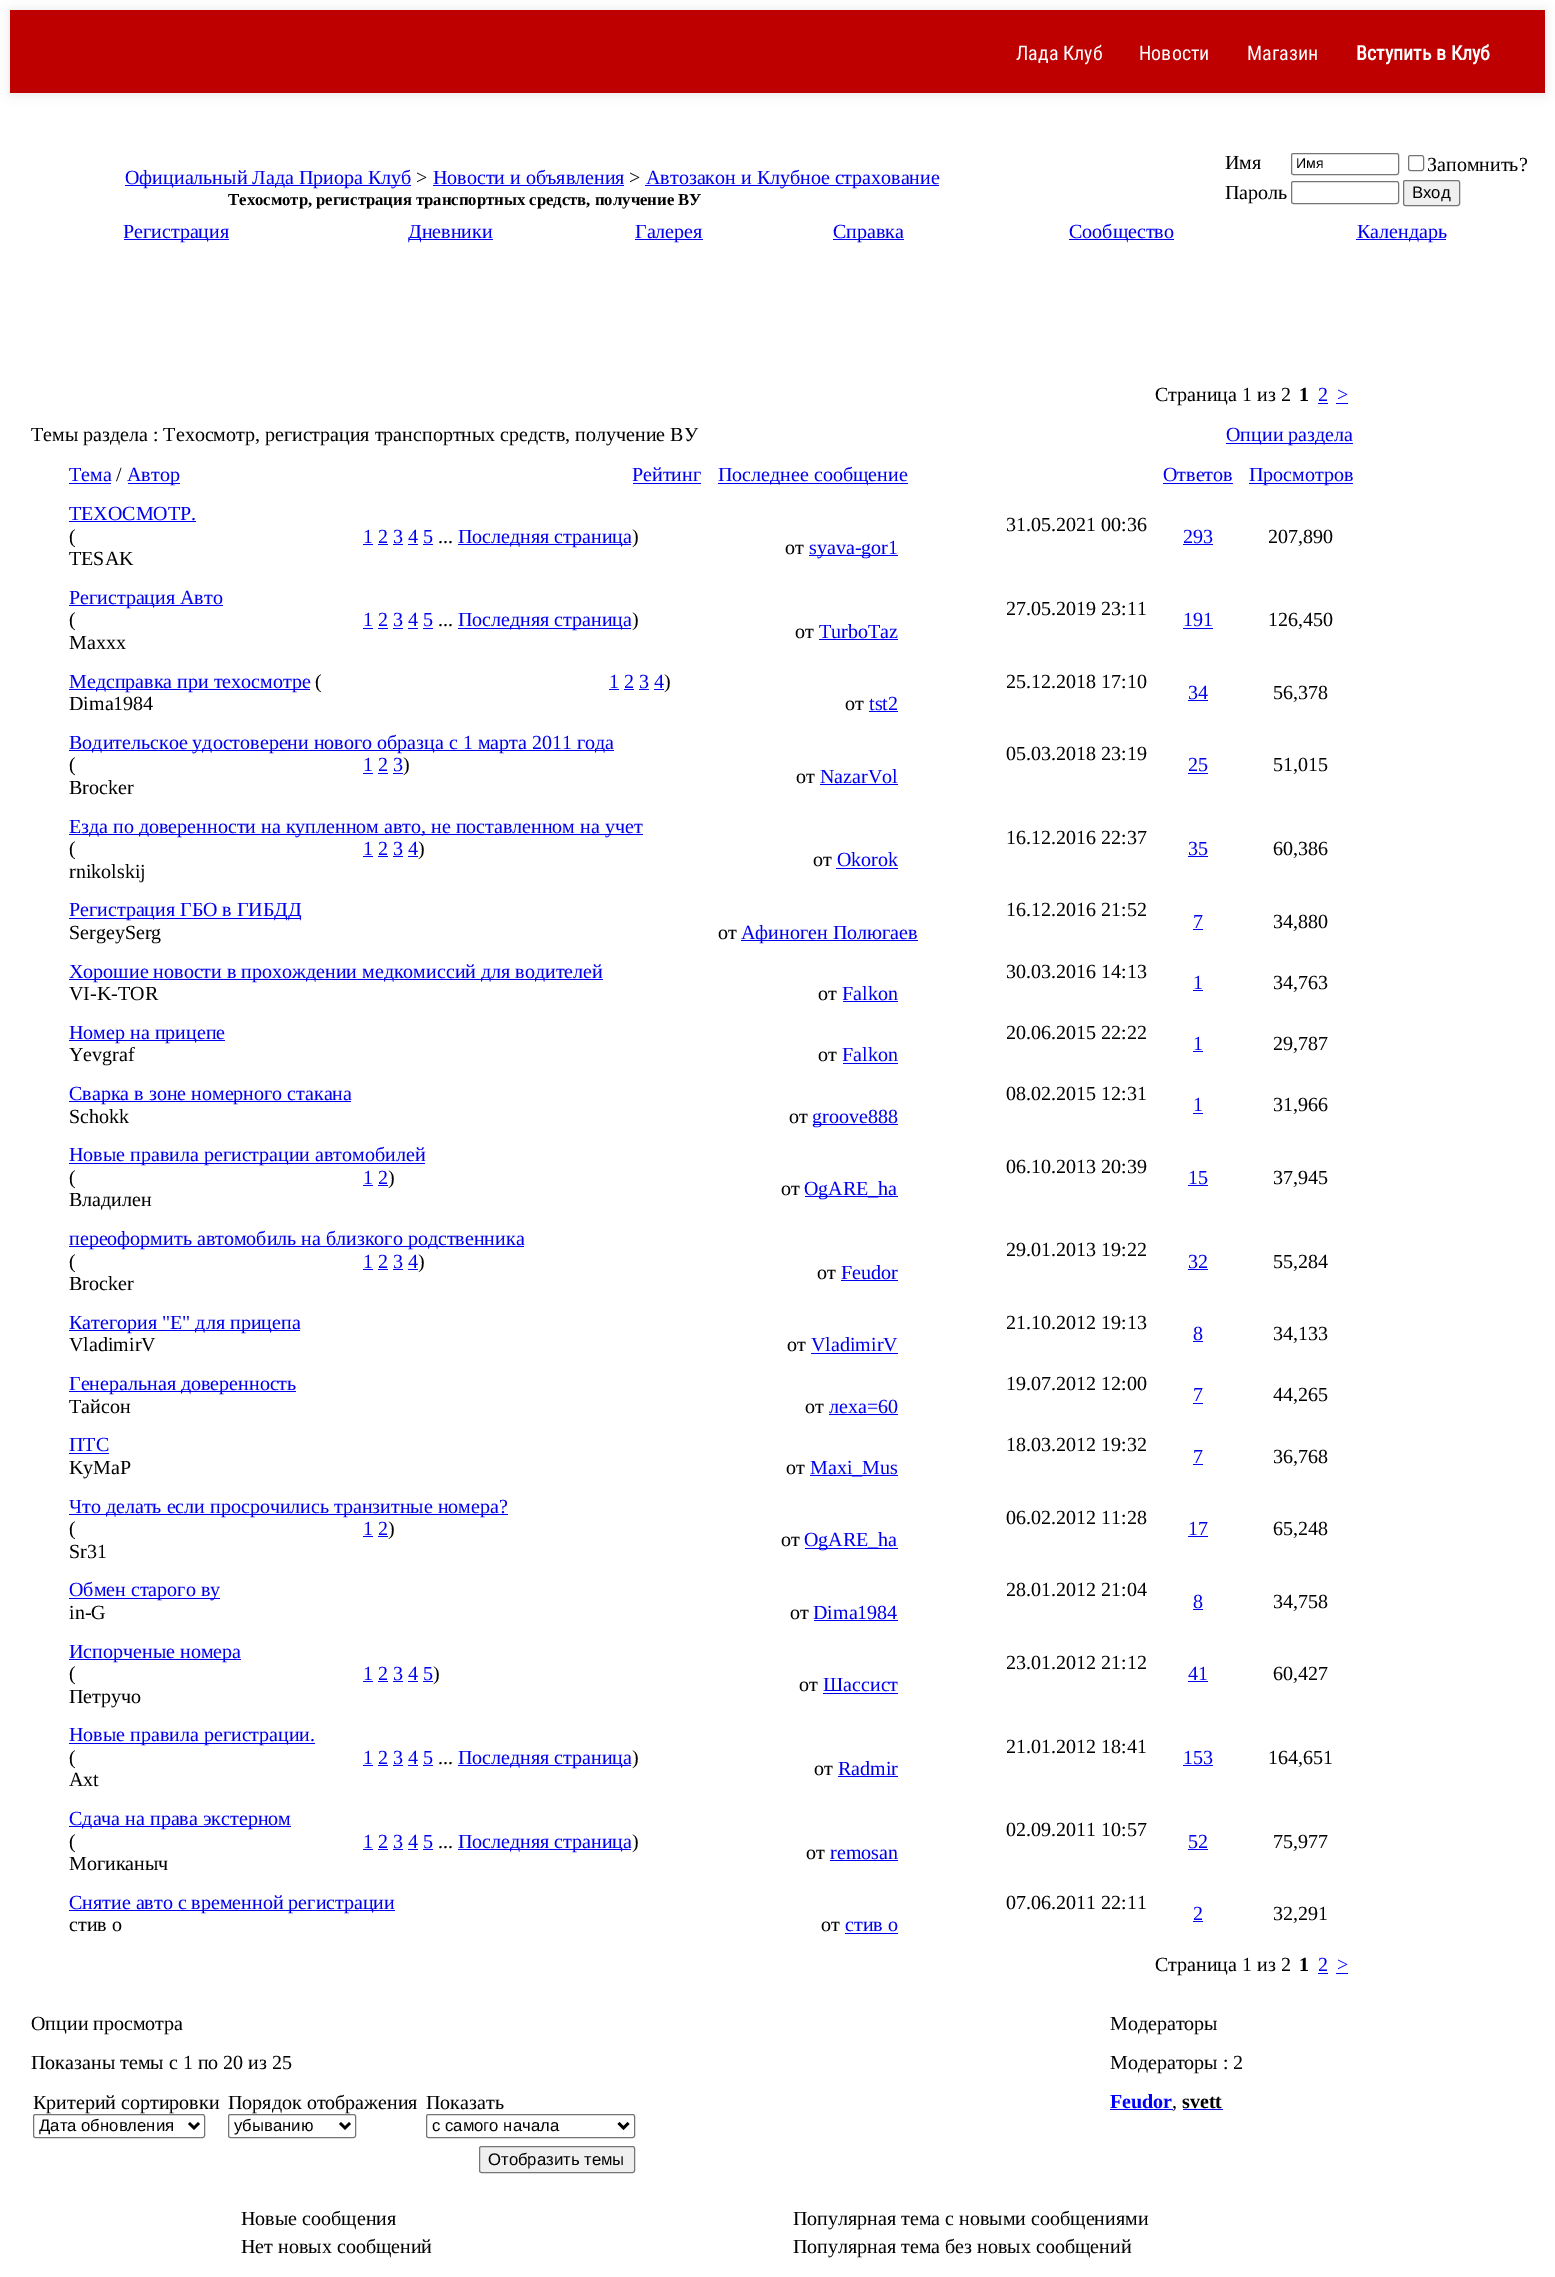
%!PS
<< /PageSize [1555 2277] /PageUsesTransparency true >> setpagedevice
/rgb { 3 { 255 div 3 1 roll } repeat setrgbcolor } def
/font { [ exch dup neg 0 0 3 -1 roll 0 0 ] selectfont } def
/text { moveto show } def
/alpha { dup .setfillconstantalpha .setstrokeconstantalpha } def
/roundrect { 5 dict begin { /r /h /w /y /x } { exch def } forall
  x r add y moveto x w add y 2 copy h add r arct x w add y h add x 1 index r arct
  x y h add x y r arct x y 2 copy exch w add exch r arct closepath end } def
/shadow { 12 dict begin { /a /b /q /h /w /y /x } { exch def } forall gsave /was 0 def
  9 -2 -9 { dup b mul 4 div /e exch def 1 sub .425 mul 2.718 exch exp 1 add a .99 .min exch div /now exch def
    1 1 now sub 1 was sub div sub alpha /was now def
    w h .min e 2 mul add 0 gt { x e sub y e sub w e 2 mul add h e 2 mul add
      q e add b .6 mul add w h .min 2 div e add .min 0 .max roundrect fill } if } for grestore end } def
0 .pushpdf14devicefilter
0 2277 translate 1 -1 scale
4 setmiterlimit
255 255 255 rgb
0 0 1555 2277 rectfill
0 0 0 rgb
10 11 1535 83 0 6 0.1 shadow
190 0 0 rgb
10 10 1535 83 rectfill
0 0 238 rgb
125 185 286 1 rectfill
433 185 191 1 rectfill
645 185 294 1 rectfill
118 118 118 rgb
1291.5 153.5 107 21 2 roundrect stroke
1408.5 155.5 15 15 2 roundrect stroke
1291.5 181.5 107 22 2 roundrect stroke
239 239 239 rgb
1403.5 180.5 56 25 2 roundrect gsave fill grestore
118 118 118 rgb
stroke
0 0 238 rgb
124 239 105 1 rectfill
409 239 84 1 rectfill
635 239 68 1 rectfill
833 239 71 1 rectfill
1069 239 105 1 rectfill
1356 239 90 1 rectfill
1318 403 10 1 rectfill
1336 403 12 1 rectfill
1226 443 127 1 rectfill
69 483 42 1 rectfill
128 483 52 1 rectfill
633 483 68 1 rectfill
718 483 190 1 rectfill
1163 483 70 1 rectfill
1249 483 104 1 rectfill
69 521 127 1 rectfill
363 544 10 1 rectfill
378 544 10 1 rectfill
393 544 10 1 rectfill
408 544 10 1 rectfill
423 544 10 1 rectfill
458 544 173 1 rectfill
809 555 89 1 rectfill
1183 544 30 1 rectfill
69 605 154 1 rectfill
363 628 10 1 rectfill
378 628 10 1 rectfill
393 628 10 1 rectfill
408 628 10 1 rectfill
423 628 10 1 rectfill
458 628 173 1 rectfill
819 639 79 1 rectfill
1183 628 30 1 rectfill
69 689 241 1 rectfill
609 689 10 1 rectfill
624 689 10 1 rectfill
639 689 10 1 rectfill
654 689 10 1 rectfill
869 711 29 1 rectfill
1188 700 20 1 rectfill
69 750 545 1 rectfill
363 773 10 1 rectfill
378 773 10 1 rectfill
393 773 10 1 rectfill
820 784 78 1 rectfill
1188 773 20 1 rectfill
69 834 574 1 rectfill
363 856 10 1 rectfill
378 856 10 1 rectfill
393 856 10 1 rectfill
408 856 10 1 rectfill
836 868 62 1 rectfill
1188 856 20 1 rectfill
69 918 232 1 rectfill
741 940 177 1 rectfill
1193 929 10 1 rectfill
69 979 534 1 rectfill
843 1001 55 1 rectfill
1193 990 10 1 rectfill
69 1040 156 1 rectfill
843 1063 55 1 rectfill
1193 1051 10 1 rectfill
69 1101 282 1 rectfill
813 1124 85 1 rectfill
1193 1113 10 1 rectfill
69 1163 356 1 rectfill
363 1185 10 1 rectfill
378 1185 10 1 rectfill
805 1196 93 1 rectfill
1188 1185 20 1 rectfill
69 1246 455 1 rectfill
363 1269 10 1 rectfill
378 1269 10 1 rectfill
393 1269 10 1 rectfill
408 1269 10 1 rectfill
841 1280 57 1 rectfill
1188 1269 20 1 rectfill
69 1330 231 1 rectfill
811 1353 87 1 rectfill
1193 1341 10 1 rectfill
69 1391 227 1 rectfill
829 1414 69 1 rectfill
1193 1403 10 1 rectfill
69 1453 40 1 rectfill
810 1475 88 1 rectfill
1193 1464 10 1 rectfill
69 1514 439 1 rectfill
363 1536 10 1 rectfill
378 1536 10 1 rectfill
805 1548 93 1 rectfill
1188 1536 20 1 rectfill
69 1598 151 1 rectfill
814 1620 84 1 rectfill
1193 1609 10 1 rectfill
69 1659 172 1 rectfill
363 1681 10 1 rectfill
378 1681 10 1 rectfill
393 1681 10 1 rectfill
408 1681 10 1 rectfill
423 1681 10 1 rectfill
823 1693 75 1 rectfill
1188 1681 20 1 rectfill
69 1743 246 1 rectfill
363 1765 10 1 rectfill
378 1765 10 1 rectfill
393 1765 10 1 rectfill
408 1765 10 1 rectfill
423 1765 10 1 rectfill
458 1765 173 1 rectfill
838 1776 60 1 rectfill
1183 1765 30 1 rectfill
69 1826 222 1 rectfill
363 1849 10 1 rectfill
378 1849 10 1 rectfill
393 1849 10 1 rectfill
408 1849 10 1 rectfill
423 1849 10 1 rectfill
458 1849 173 1 rectfill
830 1860 68 1 rectfill
1188 1849 20 1 rectfill
69 1910 326 1 rectfill
845 1933 53 1 rectfill
1193 1921 10 1 rectfill
1318 1973 10 1 rectfill
1336 1973 12 1 rectfill
118 118 118 rgb
33.5 2114.5 171 23 2 roundrect stroke
0 0 0 rgb
2.5 setlinewidth
189 2123 moveto 5 5 rlineto 5 -5 rlineto stroke
118 118 118 rgb
1 setlinewidth
228.5 2114.5 127 23 2 roundrect stroke
0 0 0 rgb
2.5 setlinewidth
340 2123 moveto 5 5 rlineto 5 -5 rlineto stroke
118 118 118 rgb
1 setlinewidth
426.5 2114.5 208 23 2 roundrect stroke
0 0 0 rgb
2.5 setlinewidth
618.5 2123 moveto 5 5 rlineto 5 -5 rlineto stroke
239 239 239 rgb
479.5 2146.5 155 26 2 roundrect gsave fill grestore
118 118 118 rgb
1 setlinewidth
stroke
0 0 238 rgb
1110 2109 63 1 rectfill
1183 2109 40 1 rectfill
/RobotoCondensed-Regular 20 font
255 255 255 rgb
(Лада Клуб) 1016 60 text
(Новости) 1139 60 text
(Магазин) 1247 60 text
/RobotoCondensed-Bold 20 font
(Вступить в Клуб) 1356 60 text
/LiberationSerif-Regular 20 font
0 0 238 rgb
(Официальный Лада Приора Клуб) 125 184 text
0 0 0 rgb
(>) 416 184 text
0 0 238 rgb
(Новости и объявления) 433 184 text
0 0 0 rgb
(>) 629 184 text
0 0 238 rgb
(Автозакон и Клубное страхование) 646 184 text
/LiberationSerif-Bold 16.7 font
0 0 0 rgb
(Техосмотр, регистрация транспортных средств, получение ВУ) 228 205 text
/LiberationSerif-Regular 20 font
(Имя) 1225 169 text
/LiberationSans-Regular 14 font
(Имя) 1296 168 text
/LiberationSerif-Regular 20 font
(Запомнить?) 1427 171 text
(Пароль) 1225 199 text
/LiberationSans-Regular 16.7 font
(Вход) 1412 198 text
/LiberationSerif-Regular 20 font
0 0 238 rgb
(Регистрация) 123 238 text
(Дневники) 408 238 text
(Галерея) 635 238 text
(Справка) 833 238 text
(Сообщество) 1069 238 text
(Календарь) 1357 238 text
0 0 0 rgb
(Страница 1 из 2) 1155 401 text
/LiberationSerif-Bold 20 font
(1) 1299 401 text
/LiberationSerif-Regular 20 font
0 0 238 rgb
(2) 1318 401 text
(>) 1337 401 text
0 0 0 rgb
(Темы раздела : Техосмотр, регистрация транспортных средств, получение ВУ) 31 441 text
0 0 238 rgb
(Опции раздела) 1226 441 text
(Тема) 69 481 text
0 0 0 rgb
(/) 116 481 text
0 0 238 rgb
(Автор) 127 481 text
(Рейтинг) 632 481 text
(Последнее сообщение) 718 481 text
(Ответов) 1163 481 text
(Просмотров) 1249 481 text
(ТЕХОСМОТР.) 69 520 text
0 0 0 rgb
(\() 69 543 text
0 0 238 rgb
(1 2 3 4 5) 363 543 text
0 0 0 rgb
(...) 438 543 text
0 0 238 rgb
(Последняя страница) 458 543 text
0 0 0 rgb
(\)) 632 543 text
(TESAK) 69 565 text
(31.05.2021 00:36) 1006 531 text
(от) 785 554 text
0 0 238 rgb
(syava-gor1) 809 554 text
(293) 1183 543 text
0 0 0 rgb
(207,890) 1268 543 text
0 0 238 rgb
(Регистрация Авто) 69 604 text
0 0 0 rgb
(\() 69 626 text
0 0 238 rgb
(1 2 3 4 5) 363 626 text
0 0 0 rgb
(...) 438 626 text
0 0 238 rgb
(Последняя страница) 458 626 text
0 0 0 rgb
(\)) 632 626 text
(Maxxx) 69 649 text
(27.05.2019 23:11) 1006 615 text
(от) 795 638 text
0 0 238 rgb
(TurboTaz) 819 638 text
(191) 1183 626 text
0 0 0 rgb
(126,450) 1268 626 text
0 0 238 rgb
(Медсправка при техосмотре) 69 688 text
0 0 0 rgb
(\() 315 688 text
0 0 238 rgb
(1 2 3 4) 609 688 text
0 0 0 rgb
(\)) 664 688 text
(Dima1984) 69 710 text
(25.12.2018 17:10) 1006 688 text
(от) 845 710 text
0 0 238 rgb
(tst2) 869 710 text
(34) 1188 699 text
0 0 0 rgb
(56,378) 1273 699 text
0 0 238 rgb
(Водительское удостоверени нового образца с 1 марта 2011 года) 69 749 text
0 0 0 rgb
(\() 69 771 text
0 0 238 rgb
(1 2 3) 363 771 text
0 0 0 rgb
(\)) 403 771 text
(Brocker) 69 794 text
(05.03.2018 23:19) 1006 760 text
(от) 796 783 text
0 0 238 rgb
(NazarVol) 820 783 text
(25) 1188 771 text
0 0 0 rgb
(51,015) 1273 771 text
0 0 238 rgb
(Езда по доверенности на купленном авто, не поставленном на учет) 69 833 text
0 0 0 rgb
(\() 69 855 text
0 0 238 rgb
(1 2 3 4) 363 855 text
0 0 0 rgb
(\)) 418 855 text
(rnikolskij) 69 878 text
(16.12.2016 22:37) 1006 844 text
(от) 813 866 text
0 0 238 rgb
(Okorok) 837 866 text
(35) 1188 855 text
0 0 0 rgb
(60,386) 1273 855 text
0 0 238 rgb
(Регистрация ГБО в ГИБДД) 69 916 text
0 0 0 rgb
(SergeySerg) 69 939 text
(16.12.2016 21:52) 1006 916 text
(от) 718 939 text
0 0 238 rgb
(Афиноген Полюгаев) 741 939 text
(7) 1193 928 text
0 0 0 rgb
(34,880) 1273 928 text
0 0 238 rgb
(Хорошие новости в прохождении медкомиссий для водителей) 69 978 text
0 0 0 rgb
(VI-K-TOR) 69 1000 text
(30.03.2016 14:13) 1006 978 text
(от) 818 1000 text
0 0 238 rgb
(Falkon) 842 1000 text
(1) 1193 989 text
0 0 0 rgb
(34,763) 1273 989 text
0 0 238 rgb
(Номер на прицепе) 69 1039 text
0 0 0 rgb
(Yevgraf) 69 1061 text
(20.06.2015 22:22) 1006 1039 text
(от) 818 1061 text
0 0 238 rgb
(Falkon) 842 1061 text
(1) 1193 1050 text
0 0 0 rgb
(29,787) 1273 1050 text
0 0 238 rgb
(Сварка в зоне номерного стакана) 69 1100 text
0 0 0 rgb
(Schokk) 69 1123 text
(08.02.2015 12:31) 1006 1100 text
(от) 789 1123 text
0 0 238 rgb
(groove888) 812 1123 text
(1) 1193 1111 text
0 0 0 rgb
(31,966) 1273 1111 text
0 0 238 rgb
(Новые правила регистрации автомобилей) 69 1161 text
0 0 0 rgb
(\() 69 1184 text
0 0 238 rgb
(1 2) 363 1184 text
0 0 0 rgb
(\)) 388 1184 text
(Владилен) 69 1206 text
(06.10.2013 20:39) 1006 1173 text
(от) 781 1195 text
0 0 238 rgb
(OgARE_ha) 804 1195 text
(15) 1188 1184 text
0 0 0 rgb
(37,945) 1273 1184 text
0 0 238 rgb
(переоформить автомобиль на близкого родственника) 69 1245 text
0 0 0 rgb
(\() 69 1268 text
0 0 238 rgb
(1 2 3 4) 363 1268 text
0 0 0 rgb
(\)) 418 1268 text
(Brocker) 69 1290 text
(29.01.2013 19:22) 1006 1256 text
(от) 817 1279 text
0 0 238 rgb
(Feudor) 841 1279 text
(32) 1188 1268 text
0 0 0 rgb
(55,284) 1273 1268 text
0 0 238 rgb
(Категория "Е" для прицепа) 69 1329 text
0 0 0 rgb
(VladimirV) 69 1351 text
(21.10.2012 19:13) 1006 1329 text
(от) 787 1351 text
0 0 238 rgb
(VladimirV) 811 1351 text
(8) 1193 1340 text
0 0 0 rgb
(34,133) 1273 1340 text
0 0 238 rgb
(Генеральная доверенность) 69 1390 text
0 0 0 rgb
(Тайсон) 69 1413 text
(19.07.2012 12:00) 1006 1390 text
(от) 805 1413 text
0 0 238 rgb
(леха=60) 829 1413 text
(7) 1193 1401 text
0 0 0 rgb
(44,265) 1273 1401 text
0 0 238 rgb
(ПТС) 69 1451 text
0 0 0 rgb
(KyMaP) 69 1474 text
(18.03.2012 19:32) 1006 1451 text
(от) 786 1474 text
0 0 238 rgb
(Maxi_Mus) 810 1474 text
(7) 1193 1463 text
0 0 0 rgb
(36,768) 1273 1463 text
0 0 238 rgb
(Что делать если просрочились транзитные номера?) 69 1513 text
0 0 0 rgb
(\() 69 1535 text
0 0 238 rgb
(1 2) 363 1535 text
0 0 0 rgb
(\)) 388 1535 text
(Sr31) 69 1558 text
(06.02.2012 11:28) 1006 1524 text
(от) 781 1546 text
0 0 238 rgb
(OgARE_ha) 804 1546 text
(17) 1188 1535 text
0 0 0 rgb
(65,248) 1273 1535 text
0 0 238 rgb
(Обмен старого ву) 69 1596 text
0 0 0 rgb
(in-G) 69 1619 text
(28.01.2012 21:04) 1006 1596 text
(от) 790 1619 text
0 0 238 rgb
(Dima1984) 813 1619 text
(8) 1193 1608 text
0 0 0 rgb
(34,758) 1273 1608 text
0 0 238 rgb
(Испорченые номера) 69 1658 text
0 0 0 rgb
(\() 69 1680 text
0 0 238 rgb
(1 2 3 4 5) 363 1680 text
0 0 0 rgb
(\)) 433 1680 text
(Петручо) 69 1703 text
(23.01.2012 21:12) 1006 1669 text
(от) 799 1691 text
0 0 238 rgb
(Шассист) 823 1691 text
(41) 1188 1680 text
0 0 0 rgb
(60,427) 1273 1680 text
0 0 238 rgb
(Новые правила регистрации.) 69 1741 text
0 0 0 rgb
(\() 69 1764 text
0 0 238 rgb
(1 2 3 4 5) 363 1764 text
0 0 0 rgb
(...) 438 1764 text
0 0 238 rgb
(Последняя страница) 458 1764 text
0 0 0 rgb
(\)) 632 1764 text
(Axt) 69 1786 text
(21.01.2012 18:41) 1006 1753 text
(от) 814 1775 text
0 0 238 rgb
(Radmir) 838 1775 text
(153) 1183 1764 text
0 0 0 rgb
(164,651) 1268 1764 text
0 0 238 rgb
(Сдача на права экстерном) 69 1825 text
0 0 0 rgb
(\() 69 1848 text
0 0 238 rgb
(1 2 3 4 5) 363 1848 text
0 0 0 rgb
(...) 438 1848 text
0 0 238 rgb
(Последняя страница) 458 1848 text
0 0 0 rgb
(\)) 632 1848 text
(Могиканыч) 69 1870 text
(02.09.2011 10:57) 1006 1836 text
(от) 806 1859 text
0 0 238 rgb
(remosan) 830 1859 text
(52) 1188 1848 text
0 0 0 rgb
(75,977) 1273 1848 text
0 0 238 rgb
(Снятие авто с временной регистрации) 69 1909 text
0 0 0 rgb
(стив о) 69 1931 text
(07.06.2011 22:11) 1006 1909 text
(от) 821 1931 text
0 0 238 rgb
(стив о) 845 1931 text
(2) 1193 1920 text
0 0 0 rgb
(32,291) 1273 1920 text
(Страница 1 из 2) 1155 1971 text
/LiberationSerif-Bold 20 font
(1) 1299 1971 text
/LiberationSerif-Regular 20 font
0 0 238 rgb
(2) 1318 1971 text
(>) 1337 1971 text
0 0 0 rgb
(Опции просмотра) 31 2030 text
(Модераторы) 1110 2030 text
(Показаны темы с 1 по 20 из 25) 31 2069 text
(Модераторы : 2) 1110 2069 text
(Критерий сортировки) 33 2109 text
gsave
39 2115 145 21 rectclip
/LiberationSans-Regular 16.7 font
(Дата обновления) 39 2131 text
grestore
(Порядок отображения) 228 2109 text
/LiberationSans-Regular 16.7 font
(убыванию) 234 2131 text
/LiberationSerif-Regular 20 font
(Показать) 426 2109 text
/LiberationSans-Regular 16.7 font
(с самого начала) 432 2131 text
(Отобразить темы) 488 2165 text
/LiberationSerif-Bold 20 font
0 0 255 rgb
(Feudor) 1110 2108 text
/LiberationSerif-Regular 20 font
0 0 0 rgb
(,) 1172 2108 text
/LiberationSerif-Bold 20 font
(svett) 1182 2108 text
/LiberationSerif-Regular 20 font
(Новые сообщения) 241 2225 text
(Популярная тема с новыми сообщениями) 793 2225 text
(Нет новых сообщений) 241 2253 text
(Популярная тема без новых сообщений) 793 2253 text
.poppdf14devicefilter showpage
